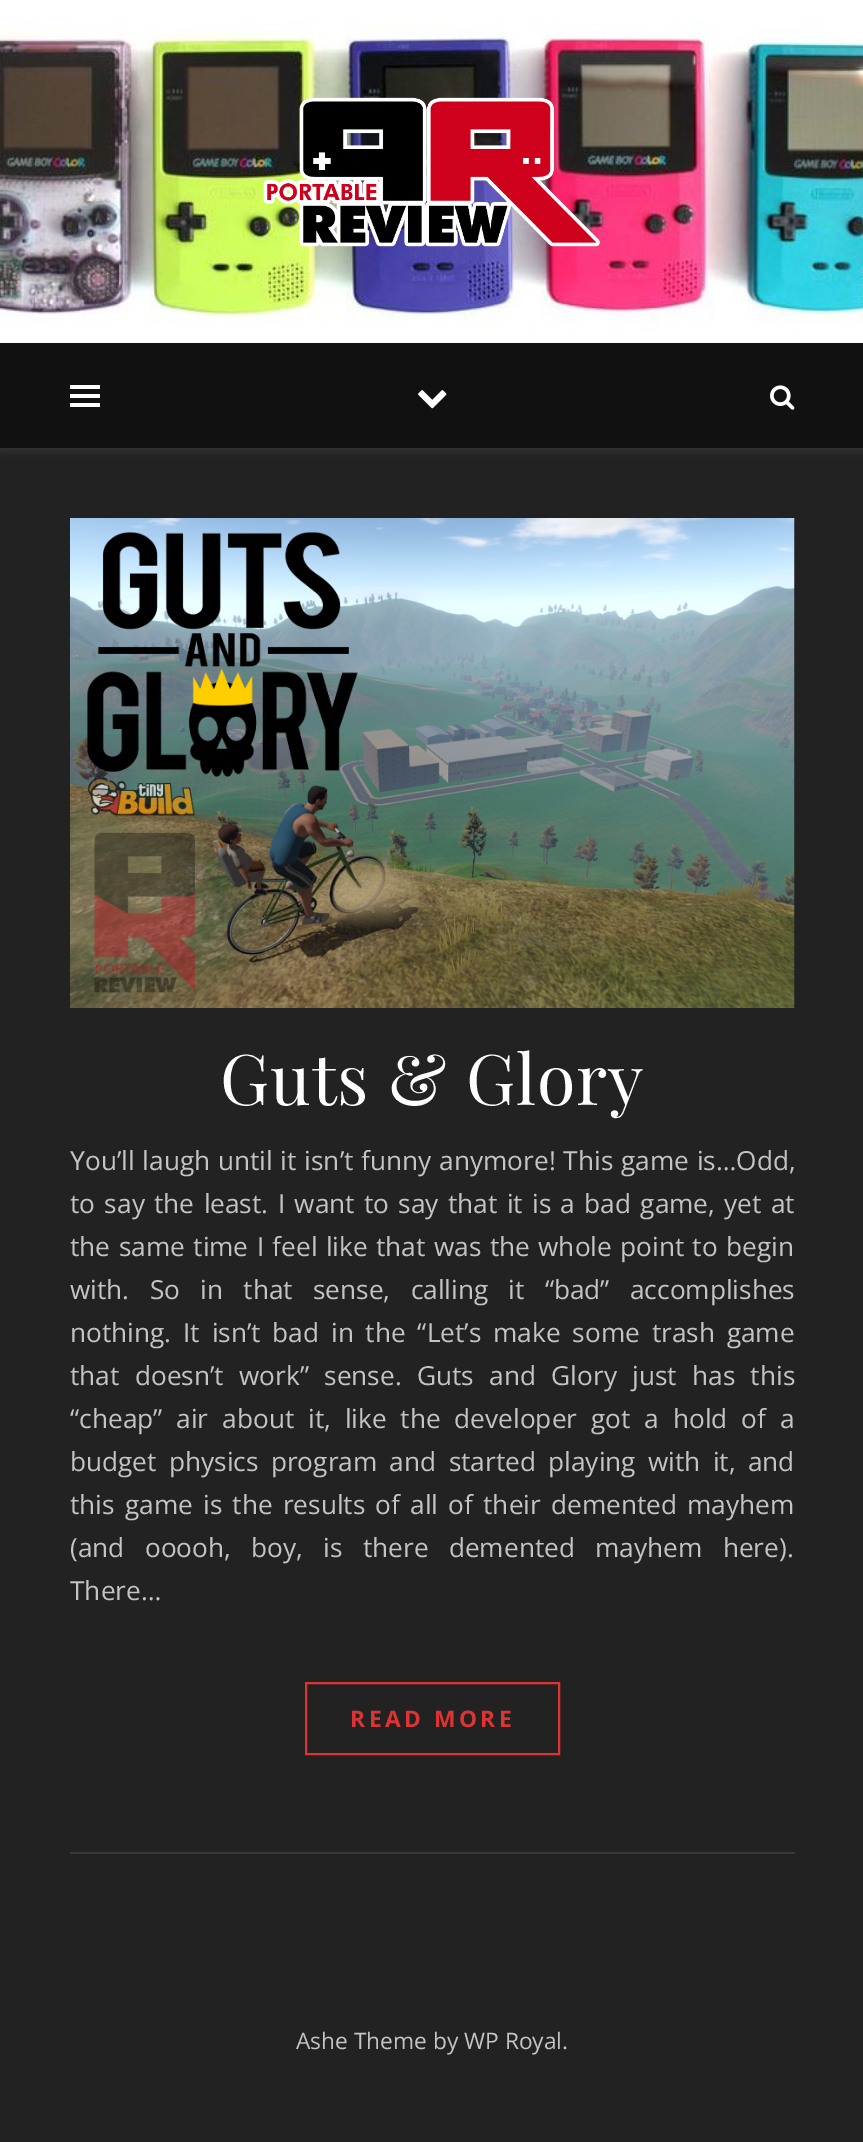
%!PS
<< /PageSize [863 2142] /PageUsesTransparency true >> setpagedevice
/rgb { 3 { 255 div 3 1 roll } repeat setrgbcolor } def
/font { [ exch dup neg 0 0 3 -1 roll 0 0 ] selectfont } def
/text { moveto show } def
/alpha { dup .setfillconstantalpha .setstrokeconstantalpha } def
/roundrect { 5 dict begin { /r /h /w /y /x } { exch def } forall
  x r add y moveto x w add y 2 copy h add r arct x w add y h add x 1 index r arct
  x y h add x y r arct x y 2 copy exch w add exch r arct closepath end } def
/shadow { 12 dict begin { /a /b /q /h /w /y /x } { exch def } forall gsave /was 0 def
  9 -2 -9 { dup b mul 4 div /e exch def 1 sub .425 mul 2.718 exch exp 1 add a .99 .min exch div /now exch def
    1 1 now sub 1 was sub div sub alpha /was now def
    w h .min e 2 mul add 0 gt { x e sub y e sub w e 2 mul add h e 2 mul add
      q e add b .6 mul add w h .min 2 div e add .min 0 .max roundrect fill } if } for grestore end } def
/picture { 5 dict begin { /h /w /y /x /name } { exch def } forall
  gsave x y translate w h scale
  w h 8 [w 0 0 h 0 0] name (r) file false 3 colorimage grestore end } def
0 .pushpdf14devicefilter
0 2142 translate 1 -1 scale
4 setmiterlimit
34 34 34 rgb
0 0 863 2142 rectfill
255 255 255 rgb
0 0 863 343 rectfill
(img_01.rgb) 0 22 863 304 picture
(img_02.rgb) 263 97 337 150 picture
0 345 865 105 0 4.5 0.1 shadow
17 17 17 rgb
0 343 863 105 rectfill
255 255 255 rgb
70 385 30 4 rectfill
70 394 30 4 rectfill
70 403 30 4 rectfill
(img_03.rgb) 418 390 29 19 picture
(img_04.rgb) 770 385 25 25 picture
(img_05.rgb) 70 518 725 490 picture
221 51 51 rgb
2 setlinewidth
306 1683 253 71 rectstroke
56 56 56 rgb
70 1852 725 2 rectfill
/PlayfairDisplay-Regular 70 font
255 255 255 rgb
220 1105 moveto 0.9 0 (Guts & Glory) ashow
/NotoSans-Regular 26.25 font
196 196 196 rgb
(Y) 70 1170 text
/OpenSans-Regular 26.25 font
85 1170 moveto 1 0 32 (ou’ll laugh until it isn’t funny anymore! This game is…Odd,) widthshow
70 1213 moveto 2.5 0 32 (to say the least. I want to say that it is a bad game, yet at) widthshow
70 1256 moveto 1.6 0 32 (the same time I feel like that was the whole point to begin) widthshow
70 1299 moveto 13.5 0 32 (with. So in that sense, calling it “bad” accomplishes) widthshow
70 1342 moveto 5 0 32 (nothing. It isn’t bad in the “Let’s make some trash game) widthshow
70 1385 moveto 8.5 0 32 (that doesn’t work” sense. Guts and Glory just has this) widthshow
70 1428 moveto 7.1 0 32 (“cheap” air about it, like the developer got a hold of a) widthshow
70 1471 moveto 5.5 0 32 (budget physics program and started playing with it, and) widthshow
70 1514 moveto 3.4 0 32 (this game is the results of all of their demented mayhem) widthshow
70 1557 moveto 13.5 0 32 (\(and ooooh, boy, is there demented mayhem here\).) widthshow
(There…) 70 1600 text
/OpenSans-Bold 22.75 font
221 51 51 rgb
350 1727 moveto 3.5 0 (READ MORE) ashow
/OpenSans-Regular 22.75 font
196 196 196 rgb
(Ashe Theme by WP Royal.) 296 2049 text
.poppdf14devicefilter showpage
